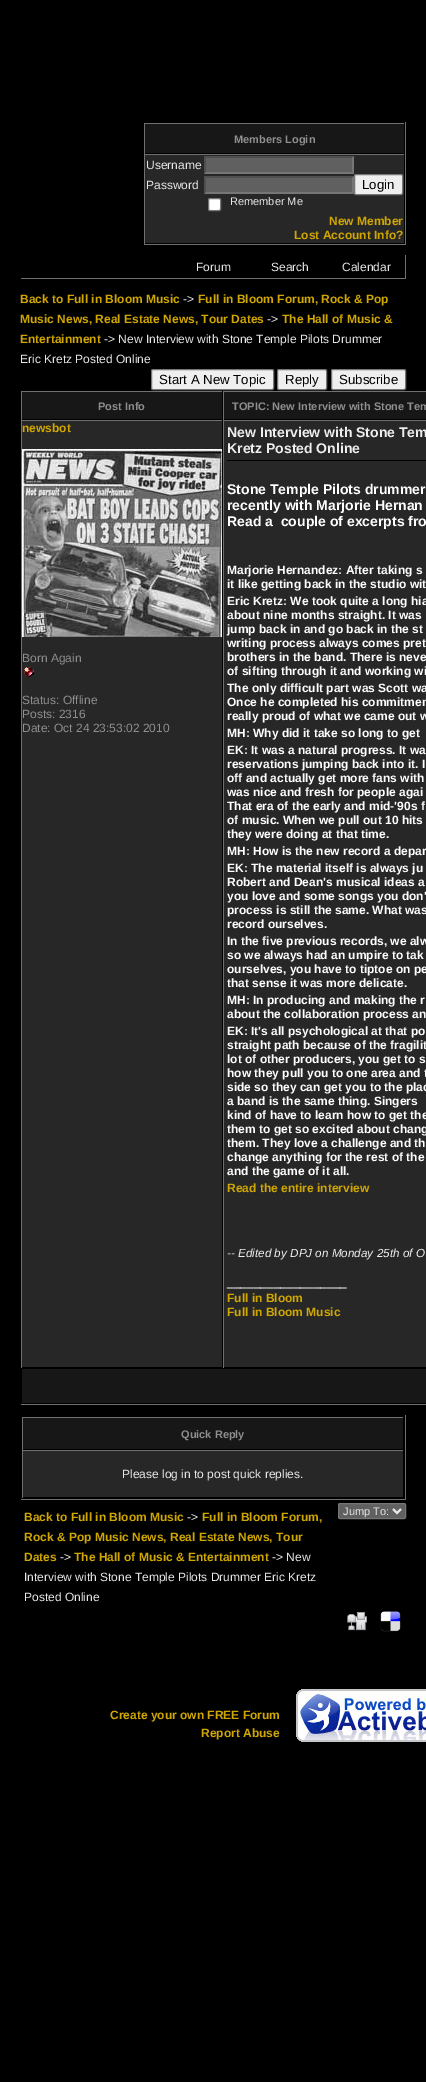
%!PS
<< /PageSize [426 2082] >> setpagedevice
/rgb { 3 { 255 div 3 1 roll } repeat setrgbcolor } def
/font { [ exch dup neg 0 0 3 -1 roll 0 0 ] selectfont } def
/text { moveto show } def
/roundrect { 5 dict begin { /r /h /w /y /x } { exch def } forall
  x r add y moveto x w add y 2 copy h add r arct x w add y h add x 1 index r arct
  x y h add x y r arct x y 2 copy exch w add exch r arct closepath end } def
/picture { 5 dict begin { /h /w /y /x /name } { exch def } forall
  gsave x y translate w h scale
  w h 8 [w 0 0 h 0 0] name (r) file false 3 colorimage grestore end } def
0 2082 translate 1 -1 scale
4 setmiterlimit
0 0 0 rgb
0 0 426 2082 rectfill
112 112 112 rgb
405 122 1 123 rectfill
143 244 263 1 rectfill
0 0 0 rgb
143 244 1 1 rectfill
23 23 23 rgb
145 124 259 29 rectfill
112 112 112 rgb
144 123 261 1 rectfill
0 0 0 rgb
404 123 1 1 rectfill
112 112 112 rgb
144 123 1 31 rectfill
39 39 39 rgb
145 155 259 88 rectfill
112 112 112 rgb
144 154 261 1 rectfill
0 0 0 rgb
404 154 1 1 rectfill
112 112 112 rgb
144 154 1 90 rectfill
96 96 96 rgb
204 156 150 18 rectfill
79 79 79 rgb
204 156 moveto 150 0 rlineto -2 2 rlineto -146 0 rlineto closepath fill
118 118 118 rgb
354 156 moveto 0 18 rlineto -2 -2 rlineto 0 -14 rlineto closepath fill
354 174 moveto -150 0 rlineto 2 -2 rlineto 146 0 rlineto closepath fill
79 79 79 rgb
204 174 moveto 0 -18 rlineto 2 2 rlineto 0 14 rlineto closepath fill
96 96 96 rgb
204 176 150 18 rectfill
79 79 79 rgb
204 176 moveto 150 0 rlineto -2 2 rlineto -146 0 rlineto closepath fill
118 118 118 rgb
354 176 moveto 0 18 rlineto -2 -2 rlineto 0 -14 rlineto closepath fill
354 194 moveto -150 0 rlineto 2 -2 rlineto 146 0 rlineto closepath fill
79 79 79 rgb
204 194 moveto 0 -18 rlineto 2 2 rlineto 0 14 rlineto closepath fill
239 239 239 rgb
354.5 174.5 48 20 1.5 roundrect gsave fill grestore
118 118 118 rgb
stroke
255 255 255 rgb
208.5 198.5 12 12 1.5 roundrect gsave fill grestore
118 118 118 rgb
stroke
112 112 112 rgb
405 255 1 24 rectfill
20 278 386 1 rectfill
0 0 0 rgb
20 278 1 1 rectfill
239 239 239 rgb
151.5 369.5 122 20 1.5 roundrect gsave fill grestore
118 118 118 rgb
stroke
239 239 239 rgb
277.5 369.5 49 20 1.5 roundrect gsave fill grestore
118 118 118 rgb
stroke
239 239 239 rgb
331.5 369.5 74 20 1.5 roundrect gsave fill grestore
118 118 118 rgb
stroke
112 112 112 rgb
20 1404 406 1 rectfill
0 0 0 rgb
20 1404 1 1 rectfill
23 23 23 rgb
22 392 200 27 rectfill
112 112 112 rgb
21 391 405 1 rectfill
0 0 0 rgb
222 391 1 1 rectfill
112 112 112 rgb
21 391 1 29 rectfill
23 23 23 rgb
224 392 202 27 rectfill
112 112 112 rgb
223 391 1 29 rectfill
39 39 39 rgb
22 421 200 946 rectfill
112 112 112 rgb
21 420 405 1 rectfill
0 0 0 rgb
222 420 1 1 rectfill
112 112 112 rgb
21 420 1 948 rectfill
(img_01.rgb) 22 449 200 188 picture
(img_02.rgb) 24 667 10 10 picture
39 39 39 rgb
224 421 202 946 rectfill
112 112 112 rgb
223 420 1 948 rectfill
0 0 0 rgb
227 460 199 1 rectfill
23 23 23 rgb
22 1369 404 34 rectfill
112 112 112 rgb
405 1415 1 85 rectfill
20 1499 386 1 rectfill
0 0 0 rgb
20 1499 1 1 rectfill
23 23 23 rgb
23 1418 380 31 rectfill
112 112 112 rgb
22 1417 382 1 rectfill
0 0 0 rgb
403 1417 1 1 rectfill
112 112 112 rgb
22 1417 1 33 rectfill
39 39 39 rgb
23 1451 380 46 rectfill
112 112 112 rgb
22 1450 382 1 rectfill
0 0 0 rgb
403 1450 1 1 rectfill
112 112 112 rgb
22 1450 1 48 rectfill
96 96 96 rgb
338.5 1503.5 67 15 1.5 roundrect gsave fill grestore
118 118 118 rgb
stroke
231 231 231 rgb
2 setlinewidth
393 1509 moveto 4 4 rlineto 4 -4 rlineto stroke
(img_03.rgb) 347 1612 20 19 picture
(img_04.rgb) 380 1611 21 21 picture
(img_05.rgb) 296 1689 130 53 picture
/LiberationSans-Bold 11 font
142 142 142 rgb
(Members Login) 234 143 text
/LiberationSans-Regular 12 font
231 231 231 rgb
(Username) 146 169 text
(Password) 146 189 text
/LiberationSans-Regular 13.25 font
0 0 0 rgb
(Login) 362 189 text
/LiberationSans-Regular 11 font
231 231 231 rgb
(Remember Me) 230 205 text
/LiberationSans-Bold 12 font
208 167 0 rgb
(New Member) 329 225 text
(Lost Account Info?) 294 239 text
/LiberationSans-Regular 12 font
231 231 231 rgb
(Forum) 196 271 text
(Search) 271 271 text
(Calendar) 342 271 text
/LiberationSans-Bold 12 font
208 167 0 rgb
(Back to Full in Bloom Music) 20 303 text
/LiberationSans-Regular 12 font
231 231 231 rgb
(->) 183 303 text
/LiberationSans-Bold 12 font
208 167 0 rgb
(Full in Bloom Forum, Rock & Pop) 198 303 text
(Music News, Real Estate News, Tour Dates) 20 323 text
/LiberationSans-Regular 12 font
231 231 231 rgb
(->) 267 323 text
/LiberationSans-Bold 12 font
208 167 0 rgb
(The Hall of Music &) 282 323 text
(Entertainment) 20 343 text
/LiberationSans-Regular 12 font
231 231 231 rgb
(-> New Interview with Stone Temple Pilots Drummer) 104 343 text
(Eric Kretz Posted Online) 20 363 text
/LiberationSans-Regular 13.25 font
0 0 0 rgb
(Start A New Topic) 159 384 text
(Reply) 285 384 text
(Subscribe) 339 384 text
/LiberationSans-Bold 11 font
142 142 142 rgb
(Post Info) 98 410 text
(TOPIC: New Interview with Stone Tem) 232 410 text
/LiberationSans-Bold 12 font
208 167 0 rgb
(newsbot) 22 432 text
/LiberationSans-Regular 12 font
142 142 142 rgb
(Born Again) 22 662 text
(Status: Offline) 22 704 text
(Posts: 2316) 22 718 text
(Date: Oct 24 23:53:02 2010) 22 732 text
/LiberationSans-Bold 14 font
238 238 238 rgb
(New Interview with Stone Tem) 227 437 text
(Kretz Posted Online) 227 453 text
255 255 255 rgb
(Stone Temple Pilots drummer) 227 494 text
(recently with Marjorie Hernan) 227 510 text
(Read a  couple of excerpts fro) 227 526 text
/LiberationSans-Bold 12 font
(Marjorie Hernandez: After taking s) 227 574 text
(it like getting back in the studio wit) 227 588 text
(Eric Kretz: We took quite a long hia) 227 605 text
(about nine months straight. It was) 227 619 text
(jump back in and go back in the st) 227 633 text
(writing process always comes pret) 227 647 text
(brothers in the band. There is neve) 227 661 text
(of sifting through it and working wi) 227 675 text
(The only difficult part was Scott wa) 227 692 text
(Once he completed his commitmen) 227 706 text
(really proud of what we came out w) 227 720 text
(MH: Why did it take so long to get) 227 737 text
(EK: It was a natural progress. It wa) 227 754 text
(reservations jumping back into it. I) 227 768 text
(off and actually get more fans with) 227 782 text
(was nice and fresh for people agai) 227 796 text
(That era of the early and mid-'90s f) 227 810 text
(of music. When we pull out 10 hits) 227 824 text
(they were doing at that time.) 227 838 text
(MH: How is the new record a depar) 227 855 text
(EK: The material itself is always ju) 227 872 text
(Robert and Dean's musical ideas a) 227 886 text
(you love and some songs you don') 227 900 text
(process is still the same. What was) 227 914 text
(record ourselves.) 227 928 text
(In the five previous records, we alw) 227 945 text
(so we always had an umpire to tak) 227 959 text
(ourselves, you have to tiptoe on pe) 227 973 text
(that sense it was more delicate.) 227 987 text
(MH: In producing and making the r) 227 1004 text
(about the collaboration process an) 227 1018 text
(EK: It's all psychological at that po) 227 1035 text
(straight path because of the fragilit) 227 1049 text
(lot of other producers, you get to s) 227 1063 text
(how they pull you to one area and t) 227 1077 text
(side so they can get you to the plac) 227 1091 text
(a band is the same thing. Singers) 227 1105 text
(kind of have to learn how to get the) 227 1119 text
(them to get so excited about chang) 227 1133 text
(them. They love a challenge and th) 227 1147 text
(change anything for the rest of the) 227 1161 text
(and the game of it all.) 227 1175 text
208 167 0 rgb
(Read the entire interview) 227 1192 text
/LiberationSans-Italic 11.7 font
238 238 238 rgb
(-- Edited by DPJ on Monday 25th of O) 227 1257 text
/LiberationSans-Regular 12 font
231 231 231 rgb
(__________________) 227 1286 text
/LiberationSans-Bold 12 font
208 167 0 rgb
(Full in Bloom) 227 1302 text
(Full in Bloom Music) 227 1316 text
/LiberationSans-Bold 11 font
142 142 142 rgb
(Quick Reply) 181 1438 text
/LiberationSans-Regular 12 font
231 231 231 rgb
(Please log in to post quick replies.) 122 1478 text
/LiberationSans-Bold 12 font
208 167 0 rgb
(Back to Full in Bloom Music) 24 1521 text
/LiberationSans-Regular 12 font
231 231 231 rgb
(->) 187 1521 text
/LiberationSans-Bold 12 font
208 167 0 rgb
(Full in Bloom Forum,) 202 1521 text
(Rock & Pop Music News, Real Estate News, Tour) 24 1541 text
(Dates) 24 1561 text
/LiberationSans-Regular 12 font
231 231 231 rgb
(->) 60 1561 text
/LiberationSans-Bold 12 font
208 167 0 rgb
(The Hall of Music & Entertainment) 74 1561 text
/LiberationSans-Regular 12 font
231 231 231 rgb
(-> New) 272 1561 text
(Interview with Stone Temple Pilots Drummer Eric Kretz) 24 1581 text
(Posted Online) 24 1601 text
/LiberationSans-Regular 11 font
(Jump To:) 343 1515 text
/LiberationSans-Bold 12 font
208 167 0 rgb
(Create your own FREE Forum) 110 1719 text
(Report Abuse) 201 1737 text
showpage
